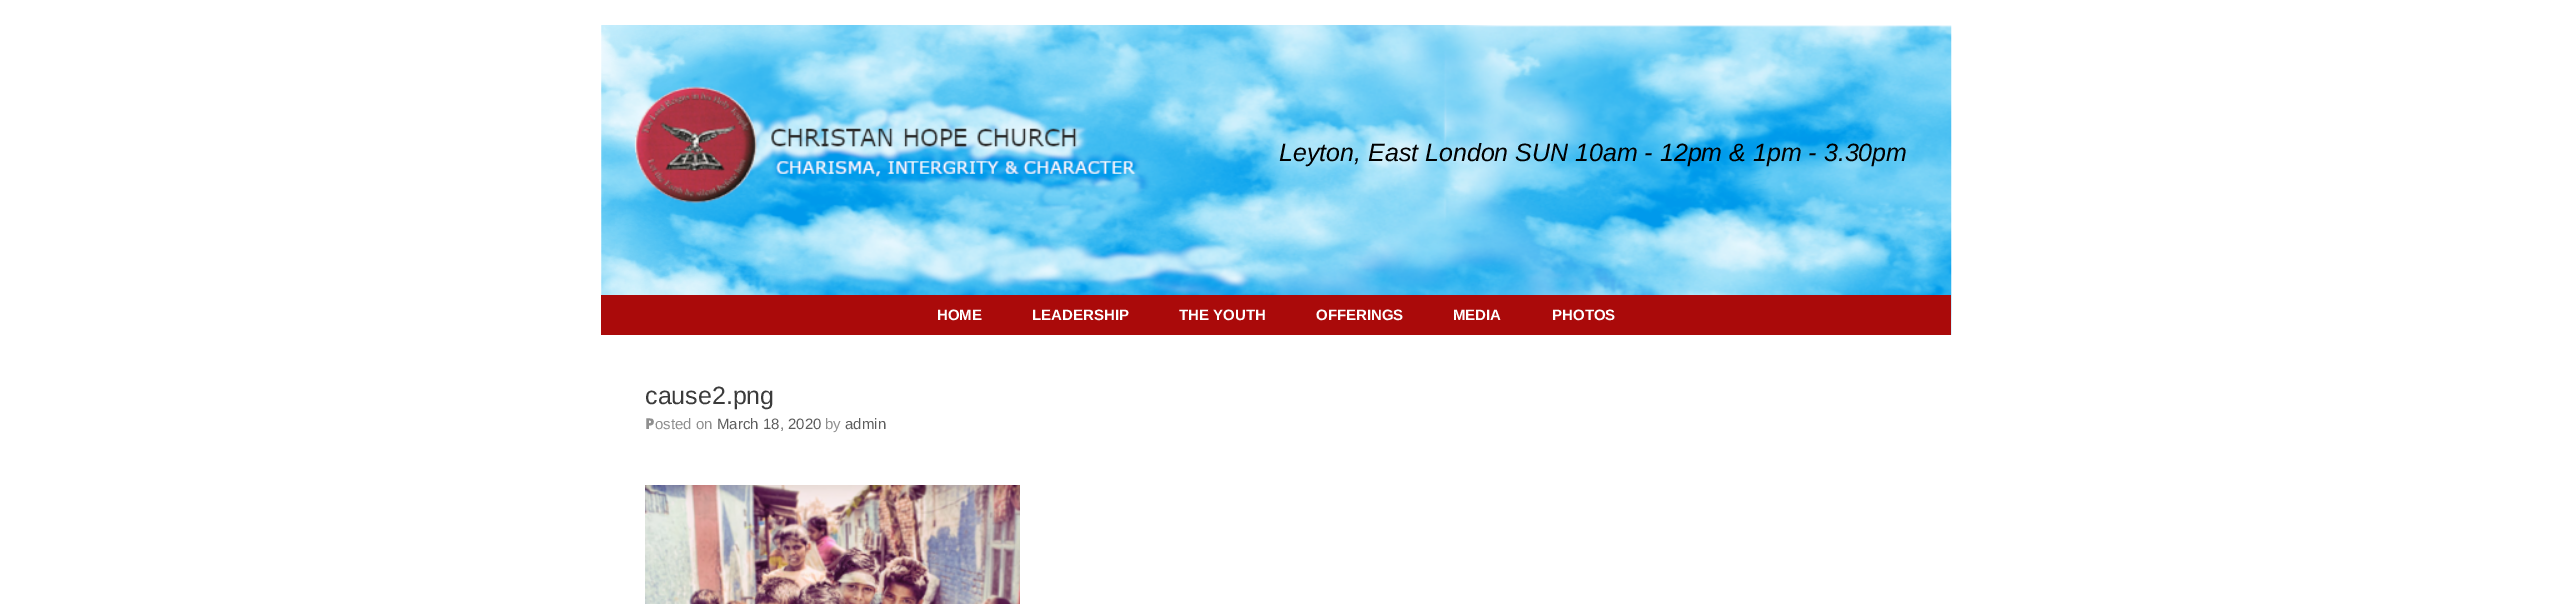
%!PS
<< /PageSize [2552 604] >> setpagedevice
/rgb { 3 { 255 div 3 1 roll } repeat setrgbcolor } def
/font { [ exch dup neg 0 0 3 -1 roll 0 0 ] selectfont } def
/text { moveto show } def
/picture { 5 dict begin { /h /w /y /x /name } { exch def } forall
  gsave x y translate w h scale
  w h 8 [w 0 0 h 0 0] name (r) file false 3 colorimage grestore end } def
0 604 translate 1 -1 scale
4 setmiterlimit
255 255 255 rgb
0 0 2552 604 rectfill
(img_01.rgb) 601 25 1351 310 picture
170 10 10 rgb
601 295 1350 40 rectfill
(img_02.rgb) 645 485 375 119 picture
/LiberationSans-Italic 25 font
0 0 0 rgb
(Leyton, East London SUN 10am - 12pm & 1pm - 3.30pm) 1279 161 text
/LiberationSans-Bold 15 font
255 255 255 rgb
(HOME) 937 320 text
(LEADERSHIP) 1032 320 text
(THE YOUTH) 1179 320 text
(OFFERINGS) 1316 320 text
(MEDIA) 1453 320 text
(PHOTOS) 1552 320 text
/LiberationSans-Regular 25 font
59 59 59 rgb
(cause2.png) 645 404 text
/NotoSans-Black 15 font
143 143 143 rgb
(P) 645 429 text
/LiberationSans-Regular 15 font
(osted on) 655 429 text
94 94 94 rgb
(March 18, 2020) 717 429 text
143 143 143 rgb
(by) 825 429 text
94 94 94 rgb
(admin) 845 429 text
showpage
